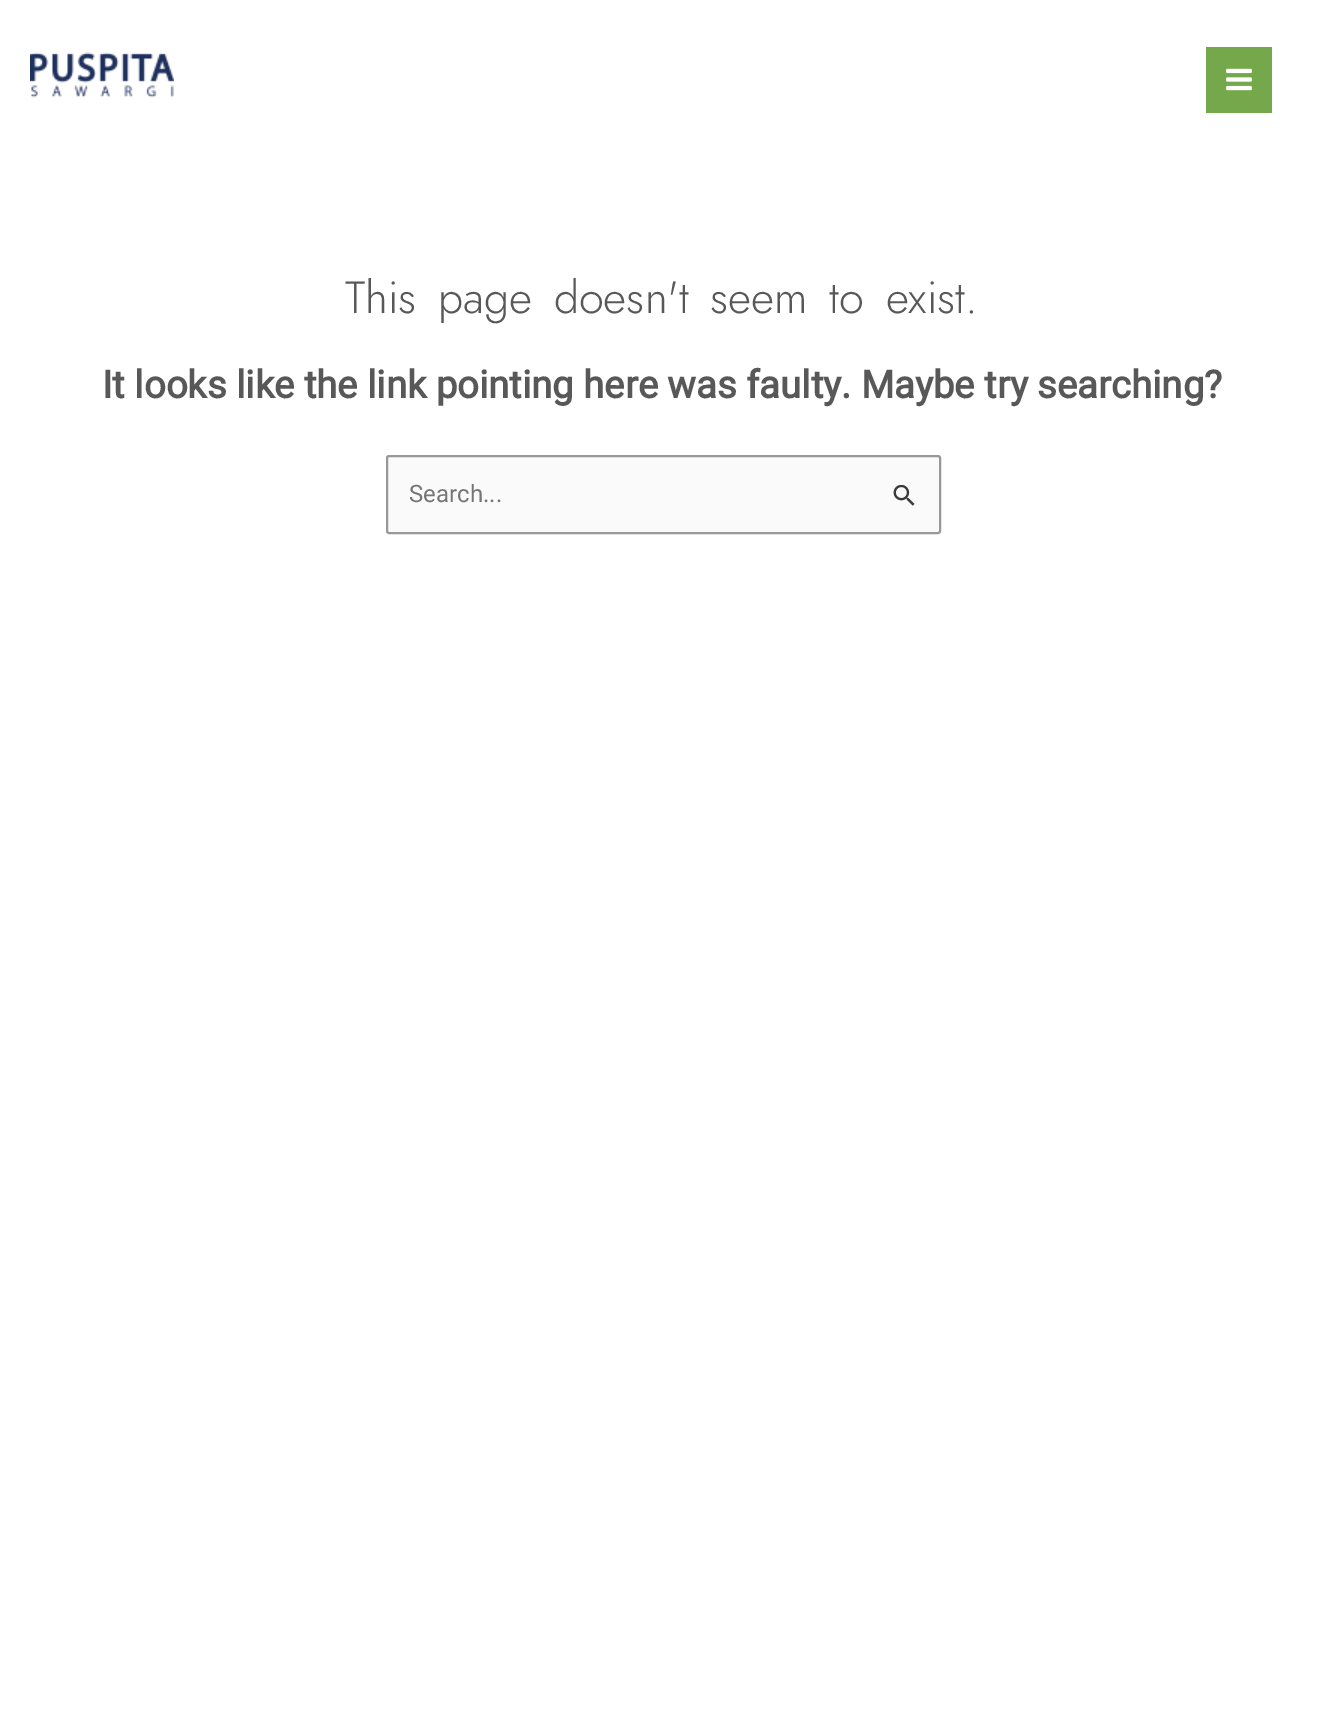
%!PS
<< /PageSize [1324 1736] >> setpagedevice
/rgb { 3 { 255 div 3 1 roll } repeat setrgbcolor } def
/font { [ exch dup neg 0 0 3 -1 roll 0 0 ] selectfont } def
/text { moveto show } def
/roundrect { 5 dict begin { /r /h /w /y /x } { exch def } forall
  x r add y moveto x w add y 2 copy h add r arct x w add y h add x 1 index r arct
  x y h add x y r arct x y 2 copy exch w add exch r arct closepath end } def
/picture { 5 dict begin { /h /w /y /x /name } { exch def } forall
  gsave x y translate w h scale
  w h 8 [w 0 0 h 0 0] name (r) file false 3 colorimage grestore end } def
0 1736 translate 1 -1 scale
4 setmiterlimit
255 255 255 rgb
0 0 1324 1736 rectfill
(img_01.rgb) 30 52 144 46 picture
116 168 74 rgb
1206 47 66 66 rectfill
(img_02.rgb) 1226 68 26 23 picture
250 250 250 rgb
387 456 553 77 2 roundrect gsave fill grestore
152 152 152 rgb
2 setlinewidth
stroke
(img_03.rgb) 893 485 22 21 picture
/Jost-Light 45 font
88 88 88 rgb
345 313 moveto 8 0 32 (This page doesn't seem to exist.) widthshow
/Roboto-Bold 38.25 font
(It looks like the link pointing here was faulty. Maybe try searching?) 102 398 text
/Roboto-Regular 24 font
117 117 117 rgb
(Search...) 409 502 text
showpage
